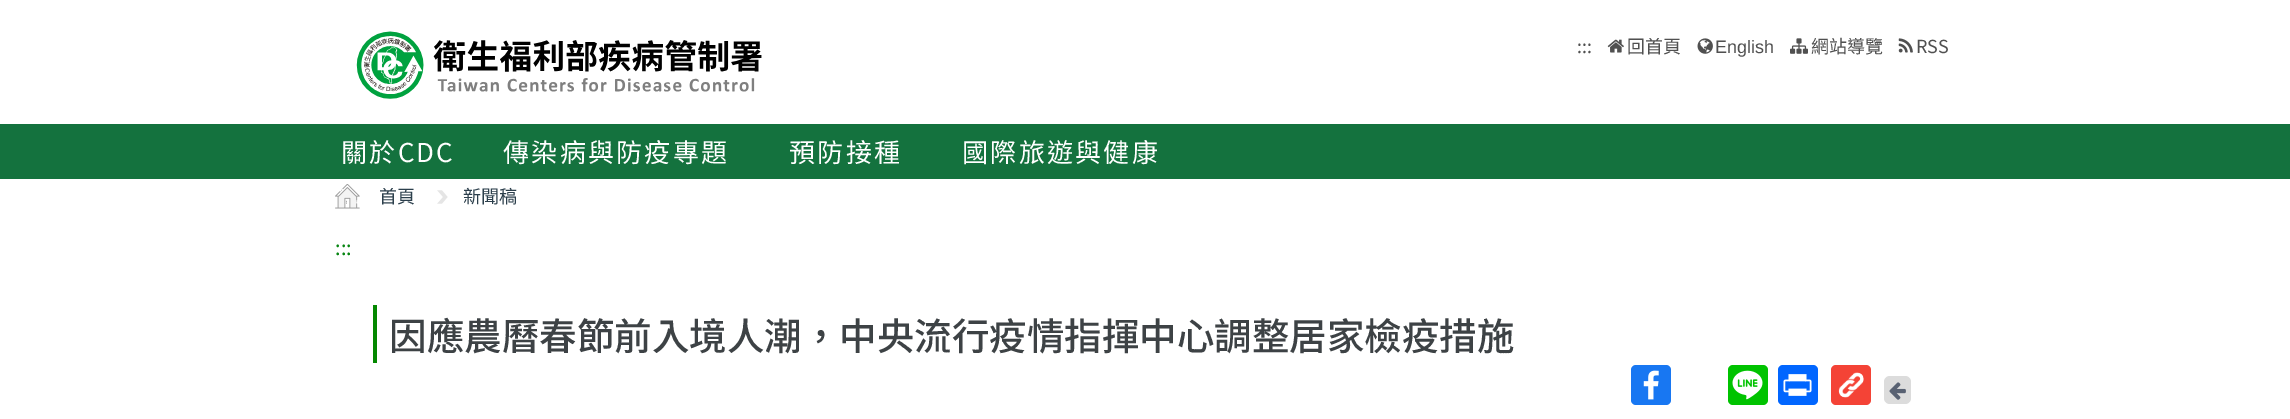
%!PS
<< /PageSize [2290 419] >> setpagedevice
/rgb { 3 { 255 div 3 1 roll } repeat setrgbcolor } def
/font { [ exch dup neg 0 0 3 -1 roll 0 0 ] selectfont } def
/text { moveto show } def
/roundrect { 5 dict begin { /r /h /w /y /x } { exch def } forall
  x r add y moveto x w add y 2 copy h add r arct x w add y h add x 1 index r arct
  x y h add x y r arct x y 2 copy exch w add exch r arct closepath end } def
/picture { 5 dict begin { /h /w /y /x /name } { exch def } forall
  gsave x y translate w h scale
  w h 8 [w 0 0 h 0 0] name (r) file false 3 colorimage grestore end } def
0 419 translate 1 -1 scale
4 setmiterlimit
255 255 255 rgb
0 0 2290 419 rectfill
(img_01.rgb) 356 31 406 68 picture
(img_02.rgb) 1607 39 17 14 picture
(img_03.rgb) 1697 38 16 16 picture
(img_04.rgb) 1790 38 18 16 picture
(img_05.rgb) 1898 38 15 15 picture
20 114 62 rgb
0 124 2290 55 rectfill
(img_06.rgb) 335 184 25 25 picture
(img_07.rgb) 437 190 11 14 picture
4 136 0 rgb
373 305 4 58 rectfill
24 119 242 rgb
1631 365 40 40 5 roundrect fill
(img_08.rgb) 1643 370 16 30 picture
0 195 0 rgb
1728 365 40 40 5 roundrect fill
(img_09.rgb) 1732 370 31 30 picture
1 102 255 rgb
1778 365 40 40 5 roundrect fill
(img_10.rgb) 1783 374 29 22 picture
244 67 54 rgb
1831 365 40 40 5 roundrect fill
(img_11.rgb) 1838 372 26 26 picture
220 220 220 rgb
1884 376 27 28 6 roundrect fill
(img_12.rgb) 1889 382 17 18 picture
/NotoSansTC-Regular 18 font
80 80 80 rgb
(:::) 1577 53 text
(回首頁) 1627 53 text
/LiberationSans-Regular 18 font
(English) 1715 53 text
/NotoSansTC-Regular 18 font
(網站導覽) 1811 53 text
(RSS) 1916 53 text
/NotoSansTC-Regular 26 font
255 255 255 rgb
341 162 moveto 2.25 0 (關於CDC) ashow
503 162 moveto 2.25 0 (傳染病與防疫專題) ashow
789 162 moveto 2.25 0 (預防接種) ashow
962 162 moveto 2.25 0 (國際旅遊與健康) ashow
/NotoSansTC-Regular 18 font
44 63 76 rgb
(首頁) 379 203 text
(新聞稿) 463 203 text
/NotoSansTC-Regular 20 font
6 133 17 rgb
(:::) 335 255 text
/NotoSansTC-Medium 37.5 font
61 66 69 rgb
(因應農曆春節前入境人潮，中央流行疫情指揮中心調整居家檢疫措施) 389 350 text
showpage
